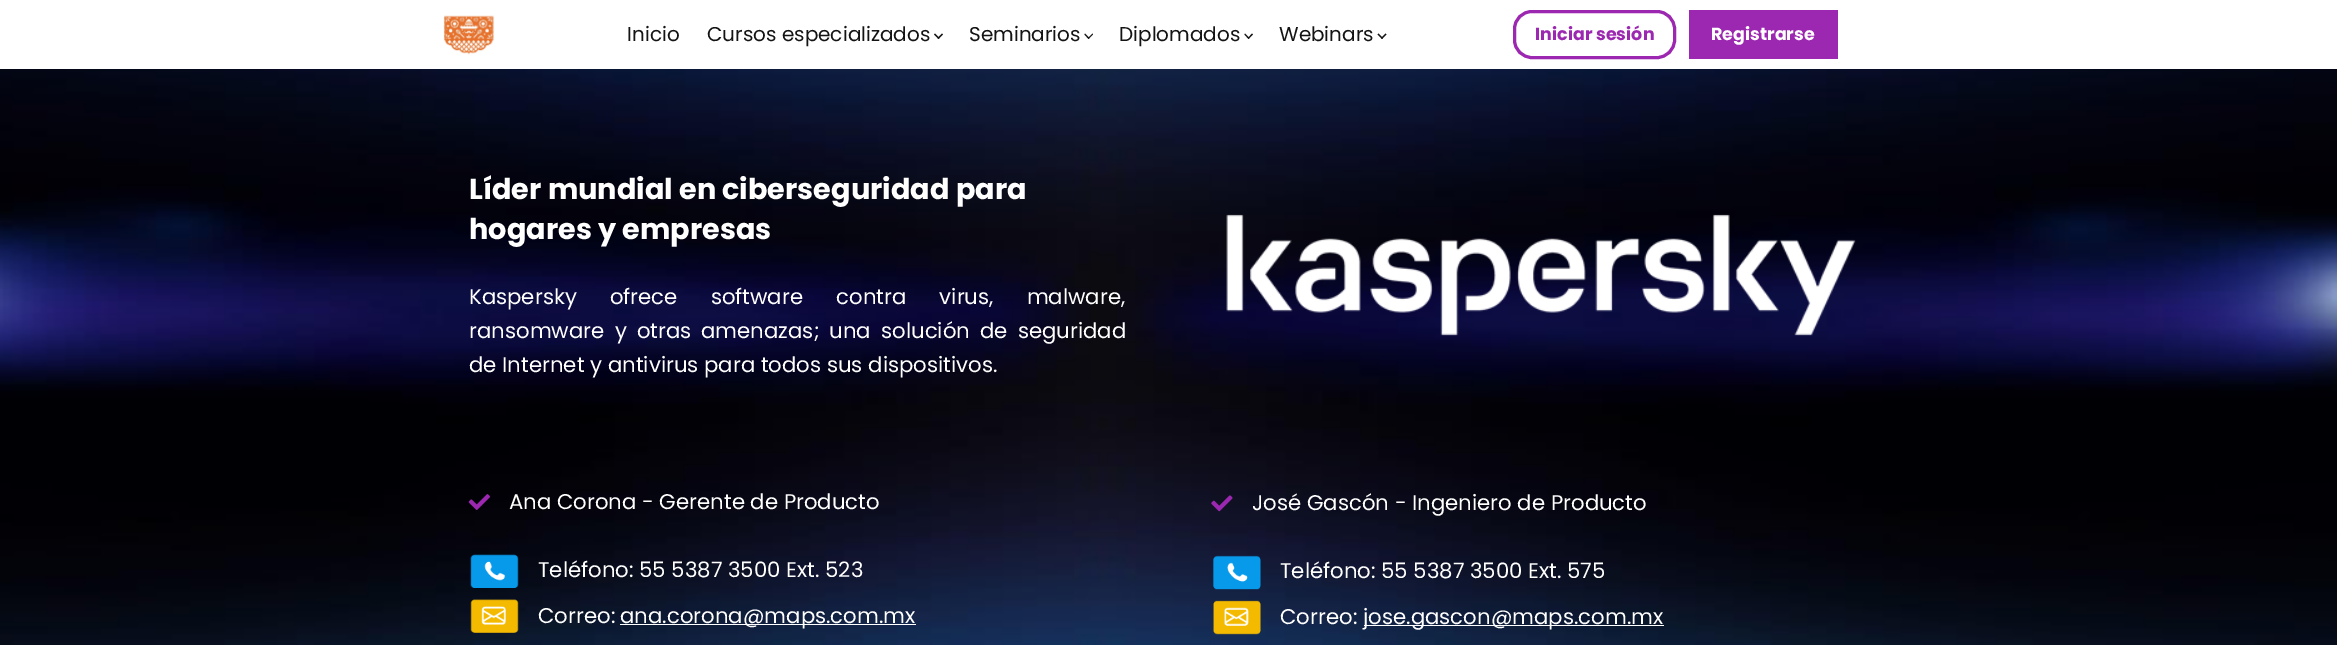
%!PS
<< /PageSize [2337 645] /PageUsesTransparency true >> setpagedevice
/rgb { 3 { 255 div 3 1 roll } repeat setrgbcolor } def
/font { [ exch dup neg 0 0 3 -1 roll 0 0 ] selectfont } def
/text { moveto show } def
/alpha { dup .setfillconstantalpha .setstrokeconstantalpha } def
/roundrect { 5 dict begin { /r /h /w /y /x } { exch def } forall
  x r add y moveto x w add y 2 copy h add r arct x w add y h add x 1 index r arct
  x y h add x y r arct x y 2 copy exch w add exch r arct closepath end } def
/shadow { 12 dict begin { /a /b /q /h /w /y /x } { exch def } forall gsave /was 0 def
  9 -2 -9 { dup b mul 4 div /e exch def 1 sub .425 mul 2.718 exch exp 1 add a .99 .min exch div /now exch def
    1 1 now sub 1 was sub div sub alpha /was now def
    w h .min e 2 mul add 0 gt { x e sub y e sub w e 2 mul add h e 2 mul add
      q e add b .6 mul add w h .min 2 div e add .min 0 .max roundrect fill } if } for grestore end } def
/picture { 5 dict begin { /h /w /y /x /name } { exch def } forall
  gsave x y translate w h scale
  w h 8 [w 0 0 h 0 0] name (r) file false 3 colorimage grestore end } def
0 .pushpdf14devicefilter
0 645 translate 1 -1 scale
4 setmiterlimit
255 255 255 rgb
0 0 2337 645 rectfill
(img_02.rgb) 0 69 2337 576 picture
0 0 0 rgb
0 0 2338 69 0 9.5 0.05 shadow
255 255 255 rgb
0 0 2337 69 rectfill
(img_01.rgb) 443 15 52 40 picture
20 20 20 rgb
943 34.5 moveto -4.5 4.5 rlineto -1 -1 rlineto 4.5 -4.5 rlineto closepath fill
939.5 38 moveto -1 1 rlineto -4.5 -4.5 rlineto 1 -1 rlineto closepath fill
1093 34.5 moveto -4.5 4.5 rlineto -0.5 -1 rlineto 4.5 -4.5 rlineto closepath fill
1089.5 38 moveto -1 1 rlineto -4 -4.5 rlineto 0.5 -1 rlineto closepath fill
1253 34.5 moveto -4.5 4.5 rlineto -0.5 -1 rlineto 4 -4.5 rlineto closepath fill
1249.5 38 moveto -1 1 rlineto -4 -4.5 rlineto 0.5 -1 rlineto closepath fill
1386.5 34.5 moveto -4.5 4.5 rlineto -1 -1 rlineto 4.5 -4.5 rlineto closepath fill
1383 38 moveto -1 1 rlineto -4.5 -4.5 rlineto 1 -1 rlineto closepath fill
156 39 176 rgb
3 setlinewidth
1514.5 11.5 160 46 17.5 roundrect stroke
1689 10 149 49 rectfill
(img_03.rgb) 468 494 22 16 picture
(img_04.rgb) 470 554 49 34 picture
(img_05.rgb) 470 599 49 34 picture
255 255 255 rgb
620 624 296 1 rectfill
(img_06.rgb) 1226 214 630 122 picture
(img_07.rgb) 1211 495 22 17 picture
(img_08.rgb) 1213 555 48 35 picture
(img_09.rgb) 1213 600 48 35 picture
1364 625 300 1 rectfill
/Poppins-Regular 20 font
20 20 20 rgb
(Inicio) 627 41 text
(Cursos especializados) 707 41 text
(Seminarios) 969 41 text
(Diplomados) 1119 41 text
(Webinars) 1279 41 text
/Poppins-Bold 17.5 font
156 39 176 rgb
(Iniciar sesión) 1535 40 text
255 255 255 rgb
(Registrarse) 1711 40 text
/Poppins-Bold 28.75 font
(Líder mundial en ciberseguridad para) 469 199 text
(hogares y empresas) 469 239 text
/Poppins-Regular 21.25 font
(Ka) 469 304 text
496 304 moveto 27.5 0 32 (spersky ofrece software contra virus, malware,) widthshow
469 338 moveto 4.5 0 32 (ransomware y otras) widthshow
701 338 moveto 4.5 0 32 (amenazas; una solución de seguridad) widthshow
(de Internet y antivirus para todos sus dispositivos.) 469 372 text
(Ana Corona - Gerente de Producto) 509 509 text
(Teléfono: 55 5387 3500 Ext. 523) 538 577 text
(Correo:) 538 623 text
(ana.corona@maps.com.mx) 620 623 text
(José Gascón - Ingeniero de Producto) 1252 510 text
(Teléfono: 55 5387 3500 Ext. 575) 1280 578 text
(Correo:) 1280 624 text
(jose.gascon@maps.com.mx) 1363 624 text
.poppdf14devicefilter showpage
